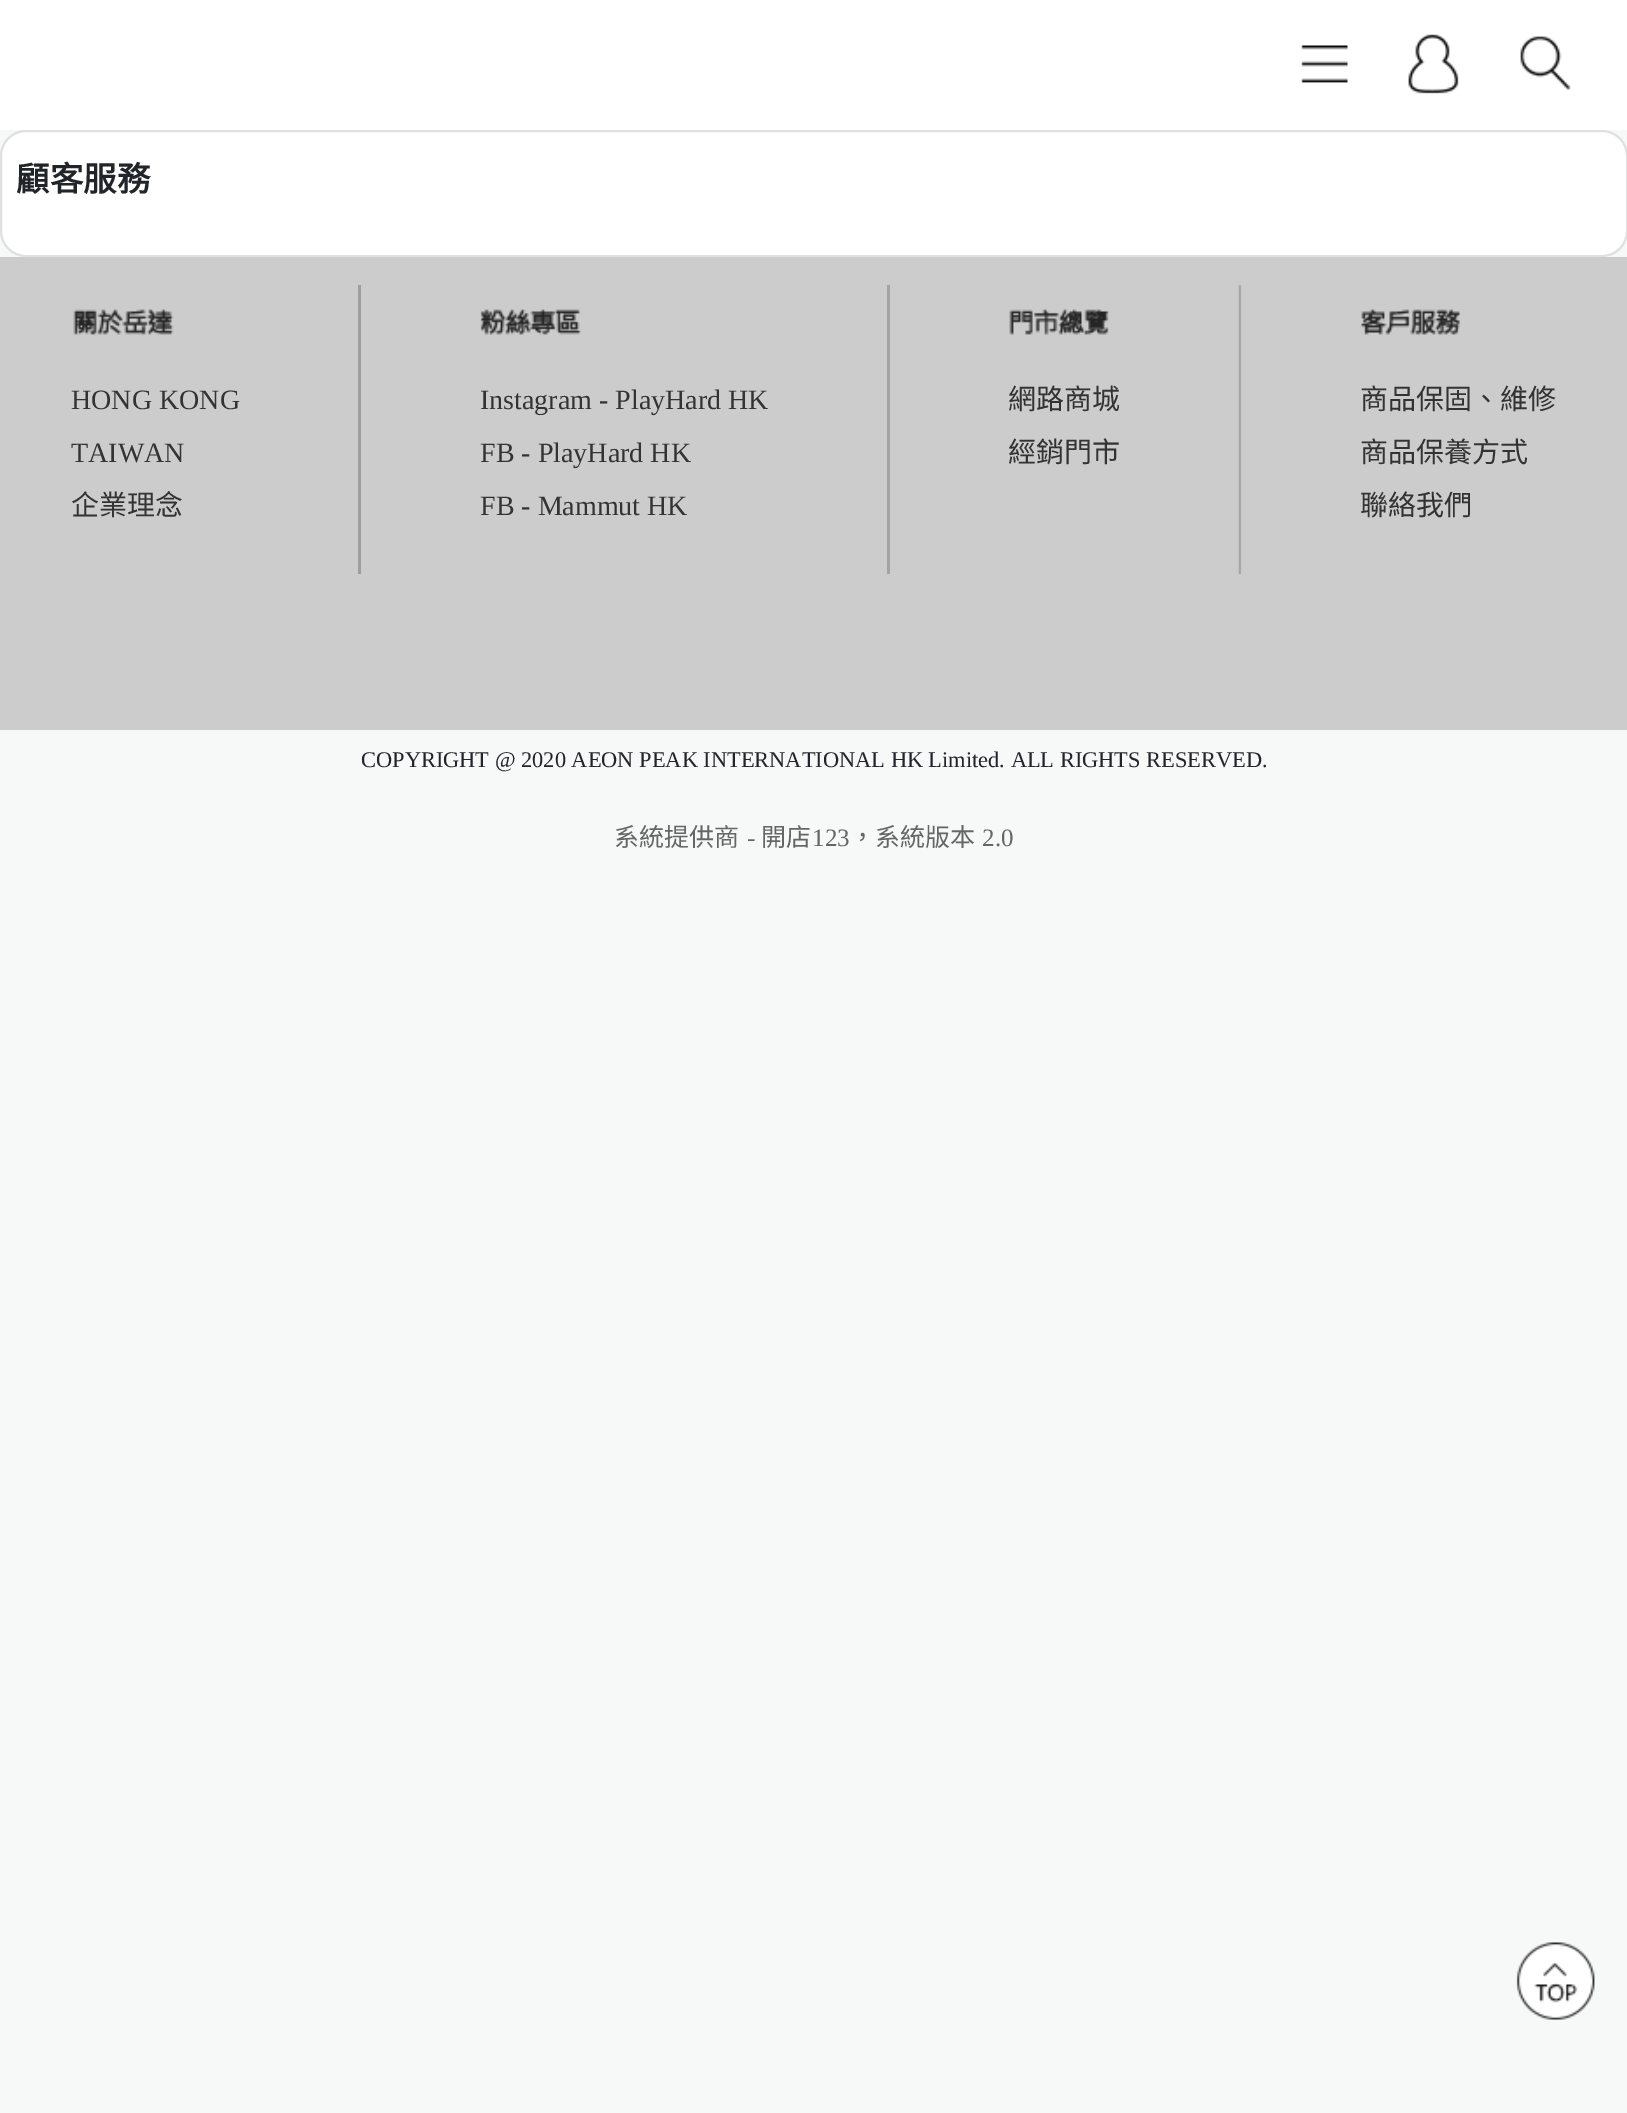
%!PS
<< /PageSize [1627 2113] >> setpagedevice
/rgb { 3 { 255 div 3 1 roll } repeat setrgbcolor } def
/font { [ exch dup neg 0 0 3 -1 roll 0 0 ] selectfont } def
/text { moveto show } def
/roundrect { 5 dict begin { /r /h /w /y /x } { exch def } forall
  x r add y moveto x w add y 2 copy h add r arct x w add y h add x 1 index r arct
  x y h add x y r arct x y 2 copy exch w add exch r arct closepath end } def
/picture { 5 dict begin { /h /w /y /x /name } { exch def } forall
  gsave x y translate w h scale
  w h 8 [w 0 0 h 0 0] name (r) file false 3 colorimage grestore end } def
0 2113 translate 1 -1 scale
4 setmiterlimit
247 248 248 rgb
0 0 1627 2113 rectfill
255 255 255 rgb
0 0 1627 130 rectfill
(img_01.rgb) 1301 45 47 38 picture
(img_02.rgb) 1408 34 51 60 picture
(img_03.rgb) 1520 36 51 54 picture
1 131 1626 125 25 roundrect gsave fill grestore
224 224 224 rgb
2 setlinewidth
stroke
204 204 204 rgb
0 257 1627 473 rectfill
(img_04.rgb) 73 309 101 26 picture
159 159 159 rgb
358 285 3 289 rectfill
(img_05.rgb) 480 309 102 26 picture
163 163 163 rgb
887 285 3 289 rectfill
(img_06.rgb) 1009 309 100 26 picture
(img_07.rgb) 1238 285 4 289 picture
(img_08.rgb) 1361 309 99 26 picture
(img_09.rgb) 1516 1942 79 78 picture
/NotoSansCJKTC-Bold 33.5 font
33 37 41 rgb
(顧客服務) 16 191 text
/LiberationSerif-Regular 28 font
51 51 51 rgb
(HONG KONG) 71 409 text
(TAIWAN) 71 462 text
/NotoSansCJKTC-Regular 28 font
(企業理念) 71 515 text
/LiberationSerif-Regular 28 font
(Instagram - PlayHard HK) 480 409 text
(FB - PlayHard HK) 480 462 text
(FB - Mammut HK) 480 515 text
/NotoSansCJKTC-Regular 28 font
(網路商城) 1008 409 text
(經銷門市) 1008 462 text
(商品保固、維修) 1360 409 text
(商品保養方式) 1360 462 text
(聯絡我們) 1360 515 text
/LiberationSerif-Regular 22.4 font
33 37 41 rgb
(COPYRIGHT @ 2020 AEON PEAK INTERNATIONAL HK Limited. ALL RIGHTS RESERVED.) 361 767 text
/NotoSansCJKTC-Regular 25 font
102 102 102 rgb
(系統提供商) 614 846 text
/LiberationSerif-Regular 25 font
(-) 747 846 text
/NotoSansCJKTC-Regular 25 font
(開店) 761 846 text
/LiberationSerif-Regular 25 font
(123) 812 846 text
/NotoSansCJKTC-Regular 25 font
(，系統版本) 850 846 text
/LiberationSerif-Regular 25 font
(2.0) 982 846 text
showpage
